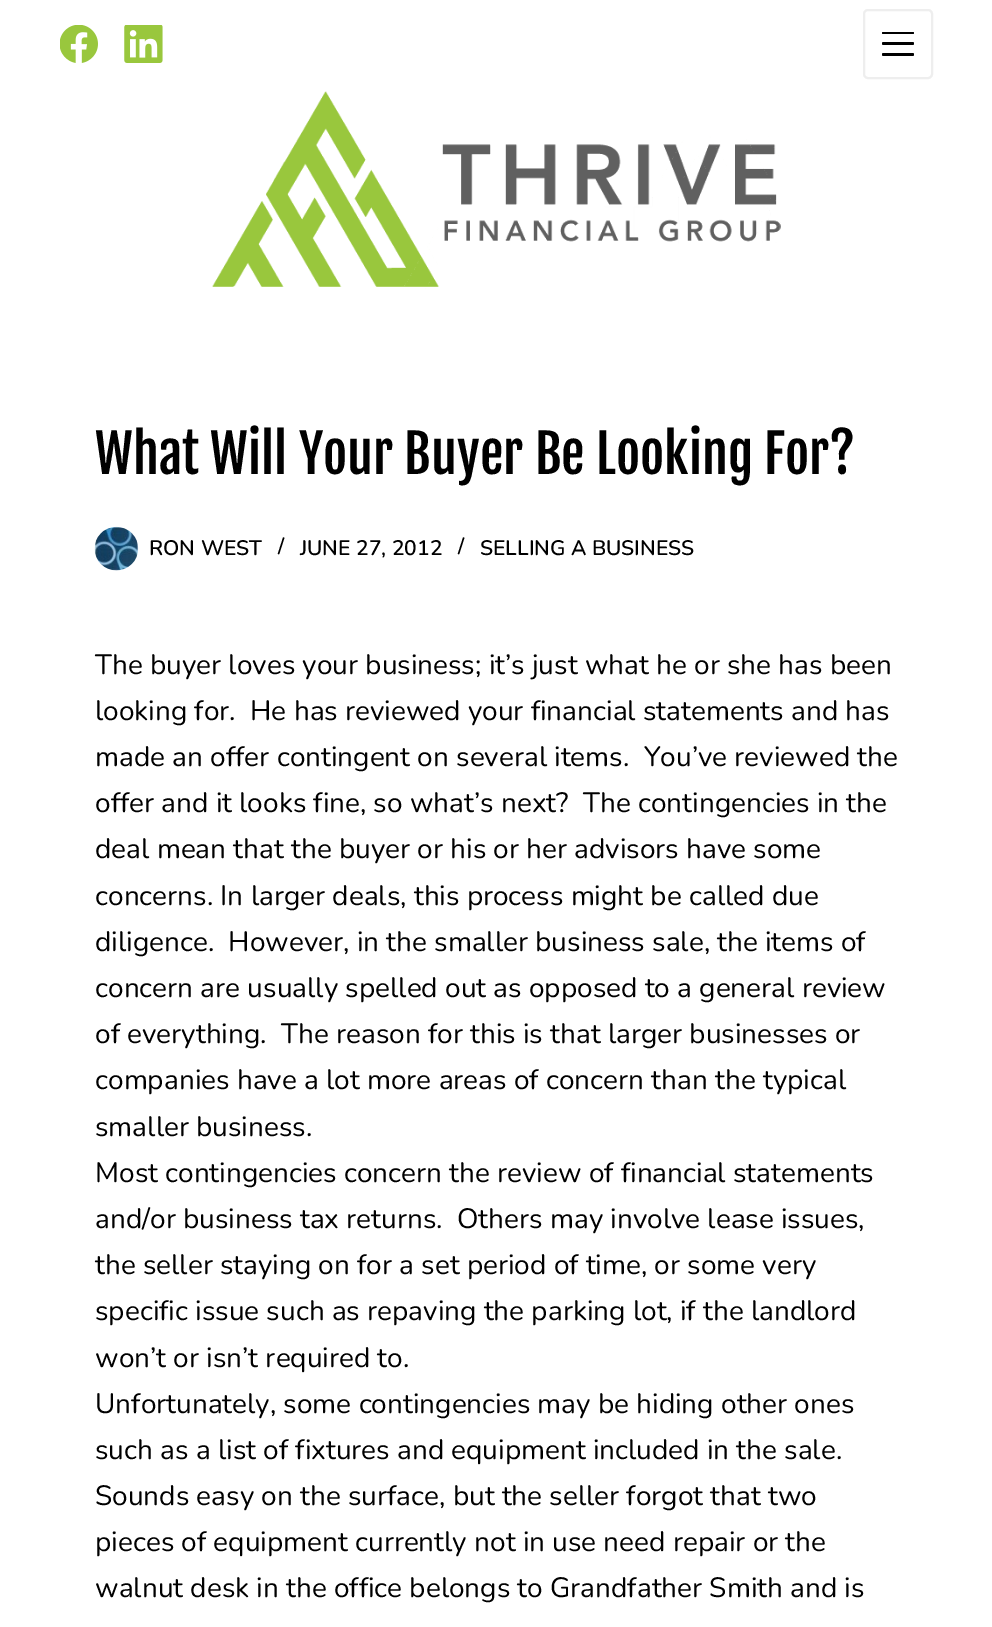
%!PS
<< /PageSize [992 1627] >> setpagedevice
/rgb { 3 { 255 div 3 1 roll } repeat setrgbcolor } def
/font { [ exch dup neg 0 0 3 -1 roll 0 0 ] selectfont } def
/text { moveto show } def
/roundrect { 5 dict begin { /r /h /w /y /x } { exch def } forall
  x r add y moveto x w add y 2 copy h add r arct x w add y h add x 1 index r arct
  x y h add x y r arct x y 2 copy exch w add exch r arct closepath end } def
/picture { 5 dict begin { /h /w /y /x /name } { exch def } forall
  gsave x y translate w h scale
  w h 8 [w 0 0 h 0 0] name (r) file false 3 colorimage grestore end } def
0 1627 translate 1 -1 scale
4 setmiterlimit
255 255 255 rgb
0 0 992 1627 rectfill
(img_01.rgb) 60 25 38 38 picture
(img_02.rgb) 124 25 39 38 picture
238 238 238 rgb
2 setlinewidth
864 10 68 68 4 roundrect stroke
0 0 0 rgb
882 32 32 2 1 roundrect fill
882 42 32 3 1.5 roundrect fill
882 53 32 3 1.5 roundrect fill
(img_03.rgb) 212 91 569 198 picture
(img_04.rgb) 94 526 45 45 picture
/FjallaOne-Regular 52.5 font
(What Will Your Buyer Be Looking For?) 95 474 text
/Nunito-SemiBold 21 font
(RON WEST) 149 555 text
(/) 278 553 text
(JUNE 27, 2012) 300 555 text
(/) 458 553 text
(SELLING A BUSINESS) 480 555 text
/Nunito-Regular 28 font
(The buyer loves your business; it’s just what he or she has been) 95 674 text
(looking for.  He has reviewed your financial statements and has) 95 720 text
(made an offer contingent on several items.  You’ve reviewed the) 95 766 text
(offer and it looks fine, so what’s next?  The contingencies in the) 95 812 text
(deal mean that the buyer or his or her advisors have some) 95 858 text
(concerns. In larger deals, this process might be called due) 95 905 text
(diligence.  However, in the smaller business sale, the items of) 95 951 text
(concern are usually spelled out as opposed to a general review) 95 997 text
(of everything.  The reason for this is that larger businesses or) 95 1043 text
(companies have a lot more areas of concern than the typical) 95 1089 text
(smaller business.) 95 1136 text
(Most contingencies concern the review of financial statements) 95 1182 text
(and/or business tax returns.  Others may involve lease issues,) 95 1228 text
(the seller staying on for a set period of time, or some very) 95 1274 text
(specific issue such as repaving the parking lot, if the landlord) 95 1320 text
(won’t or isn’t required to.) 95 1367 text
(Unfortunately, some contingencies may be hiding other ones) 95 1413 text
(such as a list of fixtures and equipment included in the sale.) 95 1459 text
(Sounds easy on the surface, but the seller forgot that two) 95 1505 text
(pieces of equipment currently not in use need repair or the) 95 1551 text
(walnut desk in the office belongs to Grandfather Smith and is) 95 1597 text
showpage
